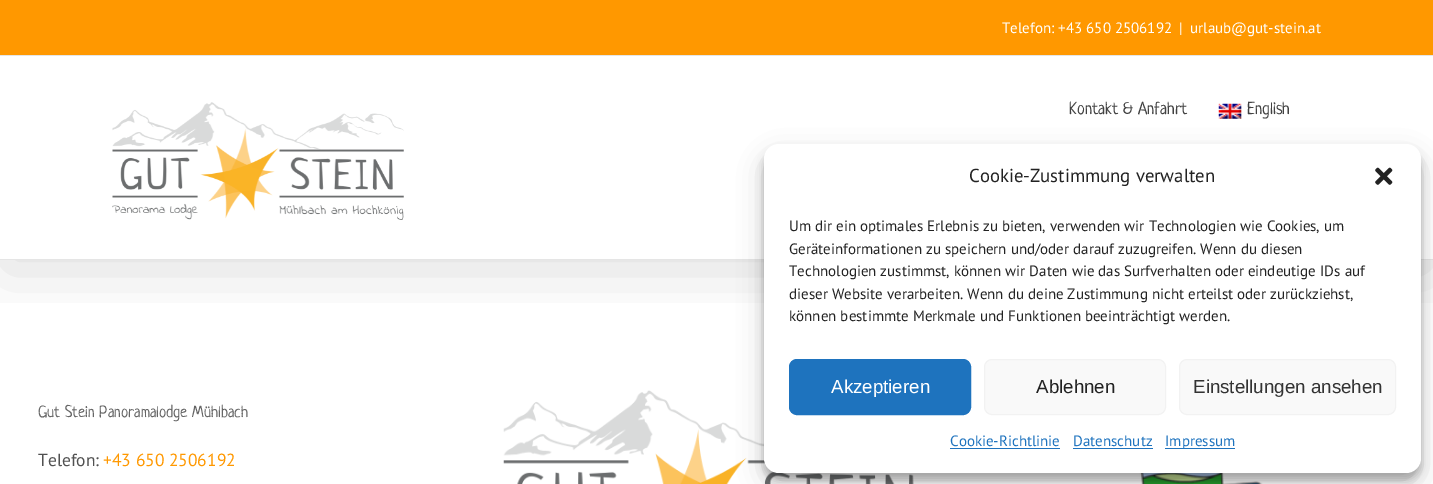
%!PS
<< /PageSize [1433 484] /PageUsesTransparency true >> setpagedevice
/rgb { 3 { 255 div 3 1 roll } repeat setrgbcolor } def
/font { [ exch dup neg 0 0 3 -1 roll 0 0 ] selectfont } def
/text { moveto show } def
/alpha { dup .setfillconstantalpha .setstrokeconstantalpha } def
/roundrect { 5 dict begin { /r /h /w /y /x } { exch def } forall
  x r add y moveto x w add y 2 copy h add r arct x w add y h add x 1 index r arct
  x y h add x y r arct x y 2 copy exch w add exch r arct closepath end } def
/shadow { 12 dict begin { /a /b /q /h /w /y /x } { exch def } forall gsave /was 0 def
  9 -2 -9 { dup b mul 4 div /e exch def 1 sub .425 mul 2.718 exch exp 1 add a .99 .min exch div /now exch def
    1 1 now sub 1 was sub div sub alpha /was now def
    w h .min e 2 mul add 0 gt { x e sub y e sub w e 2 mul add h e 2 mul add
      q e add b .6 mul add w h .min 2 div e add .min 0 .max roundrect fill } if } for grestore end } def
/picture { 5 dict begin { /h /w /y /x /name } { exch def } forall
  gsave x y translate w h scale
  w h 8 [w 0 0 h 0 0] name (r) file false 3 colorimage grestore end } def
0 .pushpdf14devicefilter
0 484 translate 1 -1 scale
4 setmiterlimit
255 255 255 rgb
0 0 1433 484 rectfill
gsave
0 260 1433 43 rectclip
0 0 0 rgb
3 15 1428 255 0 31 0.14 shadow
grestore
255 152 0 rgb
0 0 1433 55 rectfill
229 229 229 rgb
0 55 1433 1 rectfill
0 259 1433 1 rectfill
(img_01.rgb) 112 102 292 118 picture
(img_02.rgb) 1218 103 24 16 picture
(img_03.rgb) 503 390 411 94 picture
(img_04.rgb) 1111 473 152 11 picture
0 0 0 rgb
764 151 657 329 15 4 0.23 shadow
764 156 657 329 15 12.5 0.19 shadow
255 255 255 rgb
764 144 657 329 15 roundrect fill
(img_05.rgb) 1375 167 18 18 picture
30 115 190 rgb
789.5 359.5 181 55 7.5 roundrect gsave fill grestore
stroke
249 249 249 rgb
984.5 359.5 181 55 7.5 roundrect gsave fill grestore
242 242 242 rgb
stroke
249 249 249 rgb
1179.5 359.5 216 55 7.5 roundrect gsave fill grestore
242 242 242 rgb
stroke
30 115 190 rgb
950 448 110 1 rectfill
1073 448 80 1 rectfill
1165 448 70 1 rectfill
/PTSans-Regular 15 font
255 255 255 rgb
(Telefon: +43 650 2506192) 1002 33 text
(|) 1179 33 text
(urlaub@gut-stein.at) 1190 33 text
/Neucha-Regular 17.5 font
66 66 66 rgb
(Kontakt & Anfahrt) 1069 114 text
(English) 1247 114 text
/Neucha-Regular 16.25 font
102 102 102 rgb
(Gut Stein Panoramalodge Mühlbach) 38 417 text
/PTSans-Regular 17.5 font
81 81 81 rgb
(Telefon:) 38 466 text
255 152 0 rgb
(+43 650 2506192) 103 466 text
/PTSans-Regular 18.75 font
34 34 34 rgb
(Cookie-Zustimmung verwalten) 969 182 text
/PTSans-Regular 15 font
(Um dir ein optimales Erlebnis zu bieten, verwenden wir Technologien wie Cookies, um) 789 231 text
(Geräteinformationen zu speichern und/oder darauf zuzugreifen. Wenn du diesen) 789 254 text
(Technologien zustimmst, können wir Daten wie das Surfverhalten oder eindeutige IDs auf) 789 276 text
(dieser Website verarbeiten. Wenn du deine Zustimmung nicht erteilst oder zurückziehst,) 789 299 text
(können bestimmte Merkmale und Funktionen beeinträchtigt werden.) 789 321 text
/LiberationSans-Regular 18.75 font
255 255 255 rgb
(Akzeptieren) 831 393 text
34 34 34 rgb
(Ablehnen) 1036 393 text
51 51 51 rgb
(Einstellungen ansehen) 1193 393 text
/PTSans-Regular 15 font
30 115 190 rgb
(Cookie-Richtlinie) 950 446 text
(Datenschutz) 1073 446 text
(Impressum) 1165 446 text
.poppdf14devicefilter showpage
